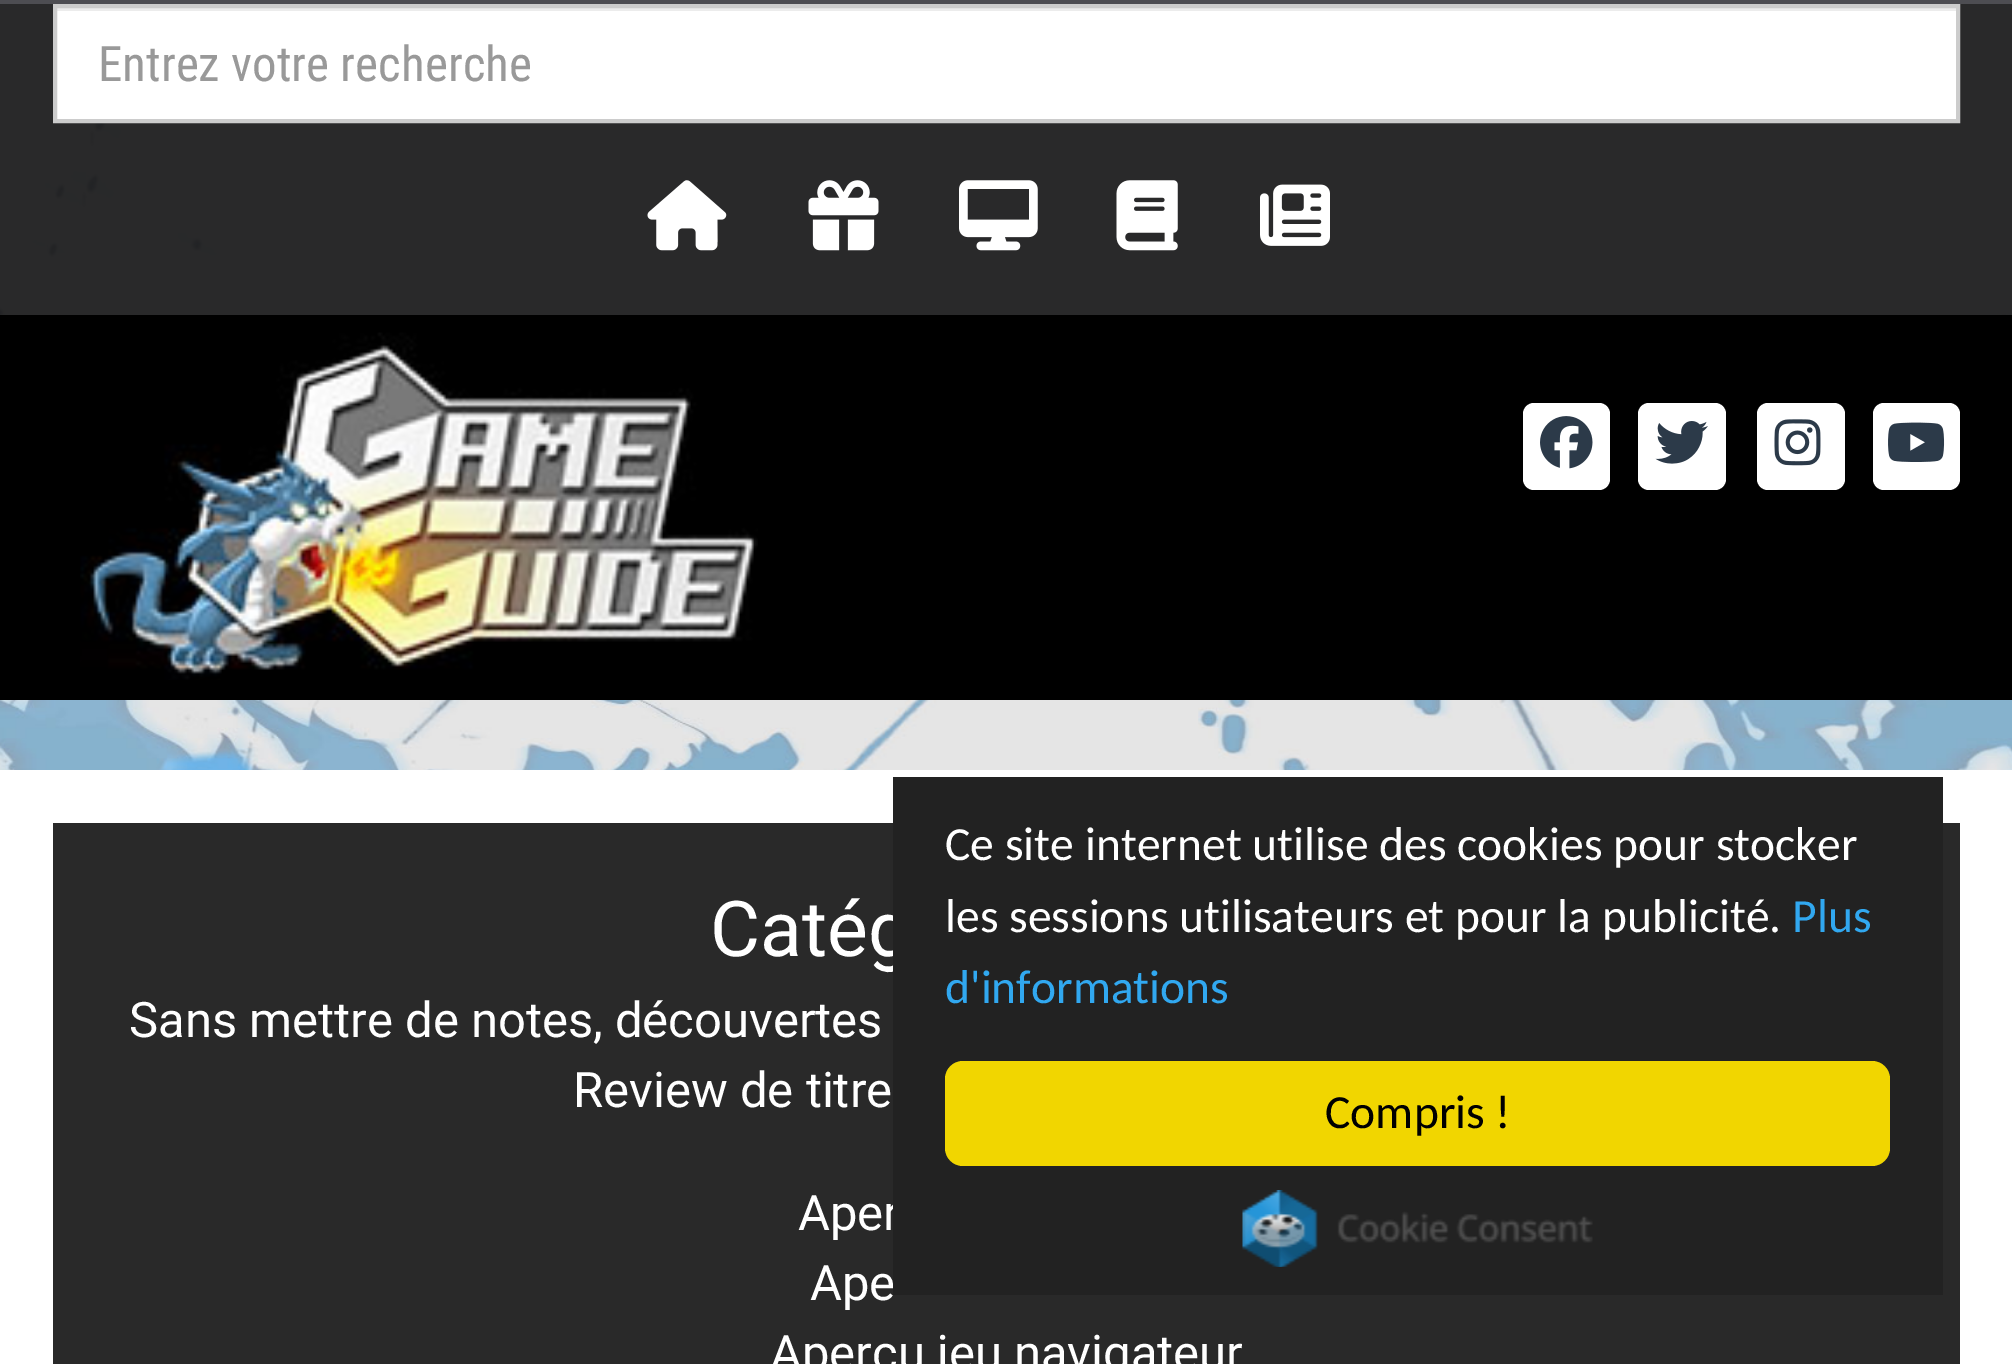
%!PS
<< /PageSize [2012 1364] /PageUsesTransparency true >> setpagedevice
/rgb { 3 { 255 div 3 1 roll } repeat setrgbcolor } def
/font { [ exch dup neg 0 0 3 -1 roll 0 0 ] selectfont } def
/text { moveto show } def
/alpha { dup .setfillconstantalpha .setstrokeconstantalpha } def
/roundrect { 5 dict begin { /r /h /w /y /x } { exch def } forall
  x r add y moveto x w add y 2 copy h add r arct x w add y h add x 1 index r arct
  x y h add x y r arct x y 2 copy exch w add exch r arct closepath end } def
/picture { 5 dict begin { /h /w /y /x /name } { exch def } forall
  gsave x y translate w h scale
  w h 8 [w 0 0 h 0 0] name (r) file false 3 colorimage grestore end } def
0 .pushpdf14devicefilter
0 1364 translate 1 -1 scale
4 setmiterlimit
255 255 255 rgb
0 0 2012 1364 rectfill
(img_01.rgb) 0 4 2012 766 picture
0.92 alpha
25 25 26 rgb
0 4 2012 311 rectfill
1 alpha
77 77 82 rgb
0 0 2012 4 rectfill
255 255 255 rgb
57 11 1899 108 rectfill
236 236 236 rgb
56 8 1901 3 rectfill
204 204 204 rgb
4 setlinewidth
55 6 1903 115 rectstroke
(img_02.rgb) 647 180 80 71 picture
(img_03.rgb) 808 180 71 71 picture
(img_04.rgb) 959 180 79 71 picture
(img_05.rgb) 1116 180 62 71 picture
(img_06.rgb) 1260 184 70 62 picture
0 0 0 rgb
0 315 2012 385 rectfill
(img_07.rgb) 80 332 678 348 picture
255 255 255 rgb
1523 403 87 87 11 roundrect fill
(img_08.rgb) 1540 416 53 53 picture
1638 403 88 87 11 roundrect fill
(img_09.rgb) 1655 421 53 43 picture
1757 403 88 87 11 roundrect fill
(img_10.rgb) 1774 419 47 47 picture
1873 403 87 87 11 roundrect fill
(img_11.rgb) 1888 422 57 40 picture
41 41 41 rgb
53 823 1907 541 rectfill
/RobotoCondensed-Regular 49 font
153 153 153 rgb
(Entrez votre recherche) 98 81 text
/Roboto-Regular 77 font
255 255 255 rgb
(Catég) 710 956 text
/Roboto-Regular 49 font
(Sans mettre de notes, découvertes) 129 1037 text
(Review de titre) 573 1107 text
(Aper) 798 1230 text
(Ape) 810 1300 text
(Aperçu jeu navigateur) 770 1370 text
34 34 34 rgb
893 777 1050 518 rectfill
/Carlito-Regular 47.6 font
255 255 255 rgb
(Ce site internet utilise des cookies pour stocker) 945 860 text
(les sessions utilisateurs et pour la publicité.) 945 932 text
49 168 240 rgb
(Plus) 1792 932 text
(d'informations) 945 1003 text
241 214 0 rgb
945 1061 945 105 18 roundrect fill
0 0 0 rgb
(Compris !) 1325 1128 text
(img_12.rgb) 1242 1190 351 77 picture
.poppdf14devicefilter showpage
